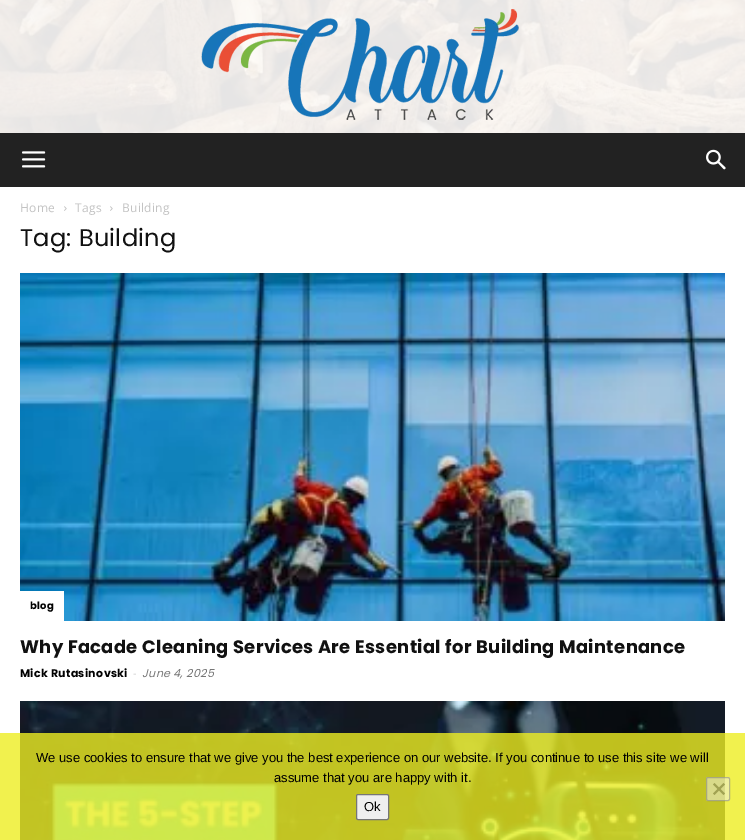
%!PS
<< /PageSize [745 840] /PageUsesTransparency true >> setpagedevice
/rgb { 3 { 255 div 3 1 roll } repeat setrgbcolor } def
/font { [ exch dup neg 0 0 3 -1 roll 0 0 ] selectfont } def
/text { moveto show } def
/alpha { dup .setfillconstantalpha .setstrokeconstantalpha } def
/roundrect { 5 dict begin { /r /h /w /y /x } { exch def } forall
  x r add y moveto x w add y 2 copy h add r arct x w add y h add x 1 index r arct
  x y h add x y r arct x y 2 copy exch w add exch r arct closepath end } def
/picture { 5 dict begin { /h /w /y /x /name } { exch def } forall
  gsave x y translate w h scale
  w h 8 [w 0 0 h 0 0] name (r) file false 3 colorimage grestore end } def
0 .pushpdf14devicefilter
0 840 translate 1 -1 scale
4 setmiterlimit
255 255 255 rgb
0 0 745 840 rectfill
(img_01.rgb) 0 0 745 133 picture
(img_02.rgb) 201 9 318 111 picture
34 34 34 rgb
0 133 745 54 rectfill
(img_03.rgb) 22 151 24 17 picture
(img_04.rgb) 706 149 20 21 picture
(img_05.rgb) 64 206 3 5 picture
(img_05.rgb) 110 206 3 5 picture
(img_06.rgb) 20 273 705 348 picture
255 255 255 rgb
20 591 44 30 rectfill
(img_07.rgb) 20 701 705 139 picture
0.8 alpha
238 238 34 rgb
0 733 745 107 rectfill
0.5 alpha
239 239 239 rgb
706 777 24 24 2 roundrect fill
118 118 118 rgb
706.5 777.5 23 23 1.5 roundrect stroke
1 alpha
161 162 82 rgb
723.5 783 moveto 1.5 1.5 rlineto -10.5 10.5 rlineto -1.5 -1.5 rlineto closepath fill
713 784.5 moveto 1.5 -1.5 rlineto 10.5 10.5 rlineto -1.5 1.5 rlineto closepath fill
239 239 239 rgb
356.5 794.5 32 25 1.5 roundrect gsave fill grestore
118 118 118 rgb
stroke
/OpenSans-Regular 12 font
195 195 195 rgb
20 212 moveto 0.32 0 (Home) ashow
75 212 moveto 0.32 0 (Tags) ashow
122 212 moveto 0.32 0 (Building) ashow
/Poppins-Regular 24 font
17 17 17 rgb
20 246 moveto 0.32 0 (Tag: Building) ashow
/Poppins-Bold 10 font
0 0 0 rgb
30 609 moveto 0.32 0 (blog) ashow
/Poppins-Bold 18 font
17 17 17 rgb
20 653 moveto 0.32 0 (Why Facade Cleaning Services Are Essential for Building Maintenance) ashow
/Poppins-Bold 11 font
0 0 0 rgb
20 677 moveto 0.32 0 (Mick Rutasinovski) ashow
/OpenSans-Regular 11 font
204 204 204 rgb
133 677 moveto 0.32 0 (-) ashow
/Poppins-Italic 11 font
118 118 118 rgb
142 677 moveto 0.32 0 (June 4, 2025) ashow
/LiberationSans-Regular 13 font
0 0 0 rgb
(We use cookies to ensure that we give you the best experience on our website. If you continue to use this site we will) 36 762 text
(assume that you are happy with it.) 274 782 text
(Ok) 364 811 text
.poppdf14devicefilter showpage
